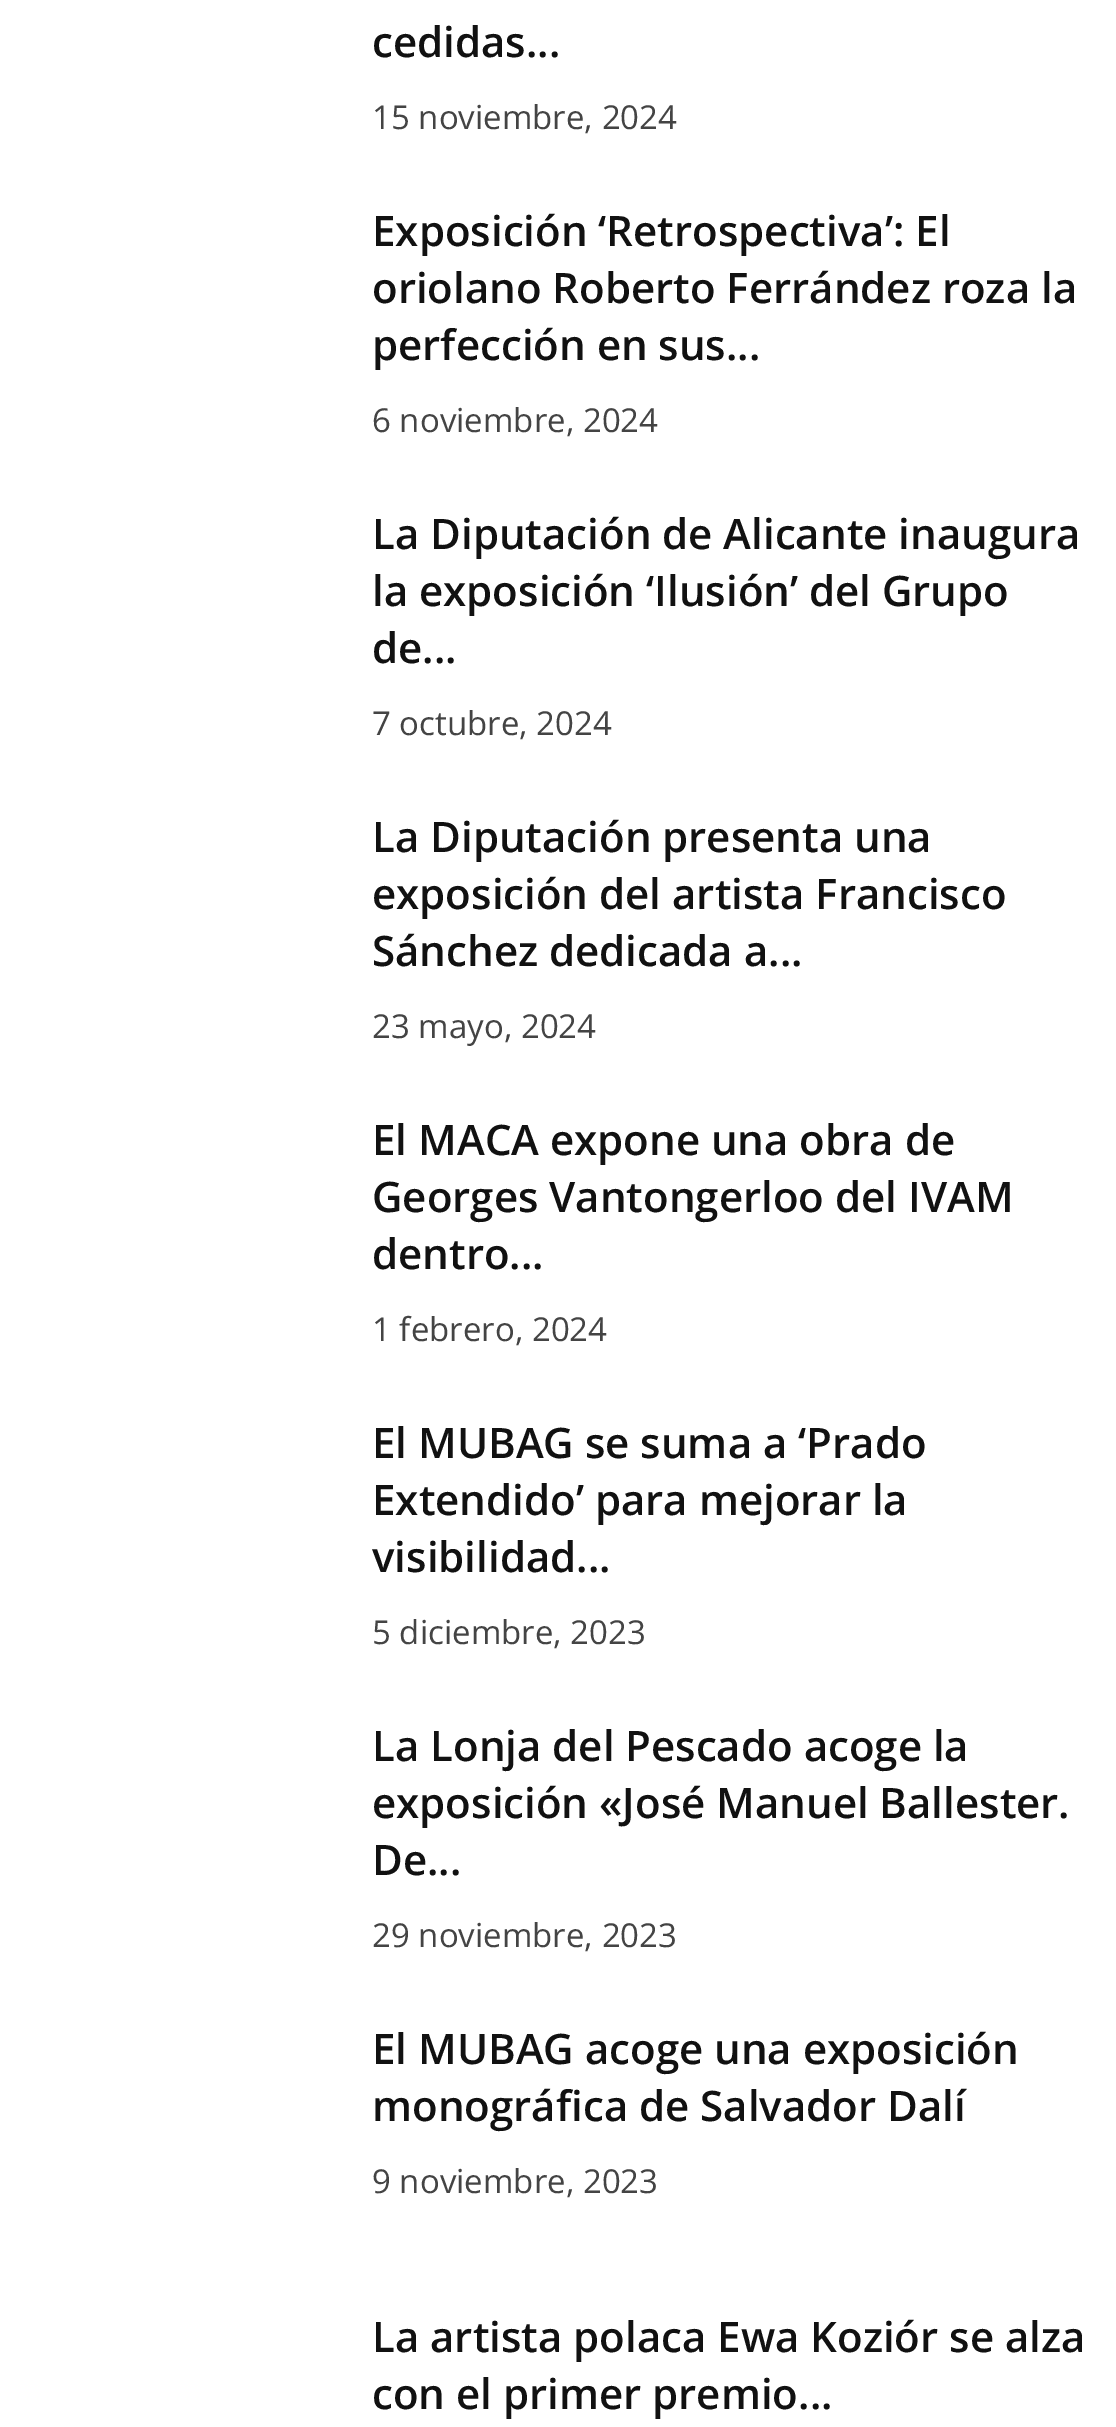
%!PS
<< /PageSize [1116 2427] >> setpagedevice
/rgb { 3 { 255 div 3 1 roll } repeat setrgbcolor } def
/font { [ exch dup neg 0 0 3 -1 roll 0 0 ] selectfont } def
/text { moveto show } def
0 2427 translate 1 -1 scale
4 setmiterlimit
255 255 255 rgb
0 0 1116 2427 rectfill
/OpenSans-SemiBold 42 font
17 17 17 rgb
(cedidas...) 372 57 text
/OpenSans-Regular 33 font
68 68 68 rgb
(15 noviembre, 2024) 372 129 text
/OpenSans-SemiBold 42 font
17 17 17 rgb
(Exposición ‘Retrospectiva’: El) 372 246 text
(oriolano Roberto Ferrández roza la) 372 303 text
(perfección en sus...) 372 360 text
/OpenSans-Regular 33 font
68 68 68 rgb
(6 noviembre, 2024) 372 432 text
/OpenSans-SemiBold 42 font
17 17 17 rgb
(La Diputación de Alicante inaugura) 372 549 text
(la exposición ‘Ilusión’ del Grupo) 372 606 text
(de...) 372 663 text
/OpenSans-Regular 33 font
68 68 68 rgb
(7 octubre, 2024) 372 735 text
/OpenSans-SemiBold 42 font
17 17 17 rgb
(La Diputación presenta una) 372 852 text
(exposición del artista Francisco) 372 909 text
(Sánchez dedicada a...) 372 966 text
/OpenSans-Regular 33 font
68 68 68 rgb
(23 mayo, 2024) 372 1038 text
/OpenSans-SemiBold 42 font
17 17 17 rgb
(El MACA expone una obra de) 372 1155 text
(Georges Vantongerloo del IVAM) 372 1212 text
(dentro...) 372 1269 text
/OpenSans-Regular 33 font
68 68 68 rgb
(1 febrero, 2024) 372 1341 text
/OpenSans-SemiBold 42 font
17 17 17 rgb
(El MUBAG se suma a ‘Prado) 372 1458 text
(Extendido’ para mejorar la) 372 1515 text
(visibilidad...) 372 1572 text
/OpenSans-Regular 33 font
68 68 68 rgb
(5 diciembre, 2023) 372 1644 text
/OpenSans-SemiBold 42 font
17 17 17 rgb
(La Lonja del Pescado acoge la) 372 1761 text
(exposición «José Manuel Ballester.) 372 1818 text
(De...) 372 1875 text
/OpenSans-Regular 33 font
68 68 68 rgb
(29 noviembre, 2023) 372 1947 text
/OpenSans-SemiBold 42 font
17 17 17 rgb
(El MUBAG acoge una exposición) 372 2064 text
(monográfica de Salvador Dalí) 372 2121 text
/OpenSans-Regular 33 font
68 68 68 rgb
(9 noviembre, 2023) 372 2193 text
/OpenSans-SemiBold 42 font
17 17 17 rgb
(La artista polaca Ewa Koziór se alza) 372 2352 text
(con el primer premio...) 372 2409 text
showpage
